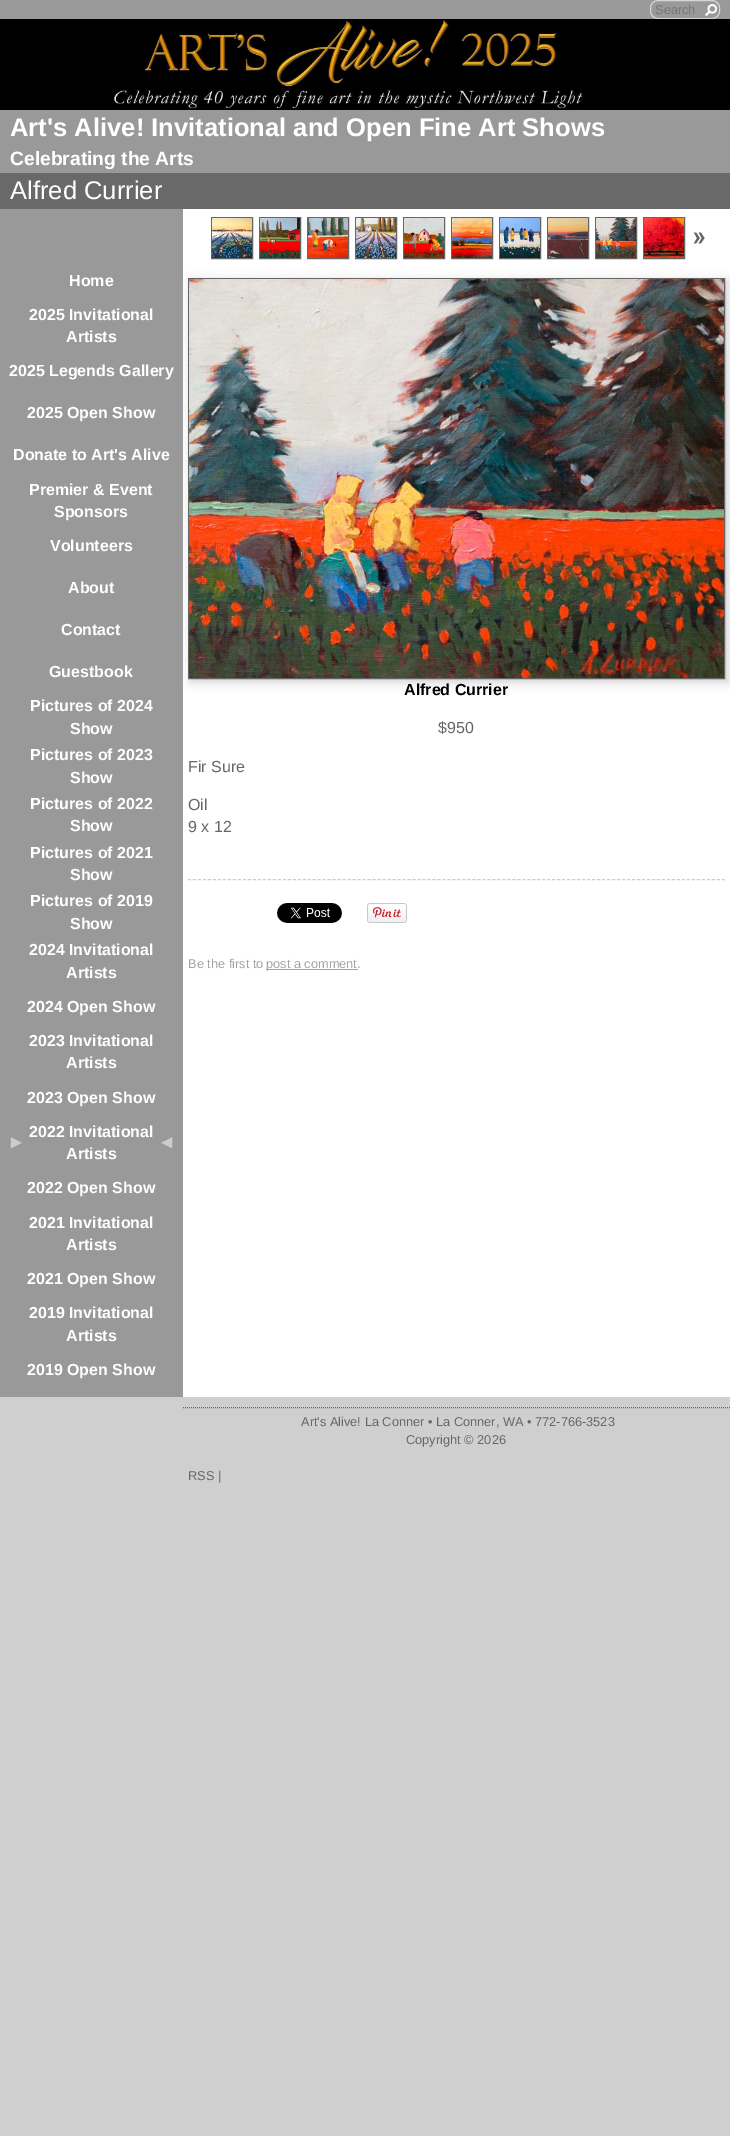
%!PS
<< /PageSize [730 2136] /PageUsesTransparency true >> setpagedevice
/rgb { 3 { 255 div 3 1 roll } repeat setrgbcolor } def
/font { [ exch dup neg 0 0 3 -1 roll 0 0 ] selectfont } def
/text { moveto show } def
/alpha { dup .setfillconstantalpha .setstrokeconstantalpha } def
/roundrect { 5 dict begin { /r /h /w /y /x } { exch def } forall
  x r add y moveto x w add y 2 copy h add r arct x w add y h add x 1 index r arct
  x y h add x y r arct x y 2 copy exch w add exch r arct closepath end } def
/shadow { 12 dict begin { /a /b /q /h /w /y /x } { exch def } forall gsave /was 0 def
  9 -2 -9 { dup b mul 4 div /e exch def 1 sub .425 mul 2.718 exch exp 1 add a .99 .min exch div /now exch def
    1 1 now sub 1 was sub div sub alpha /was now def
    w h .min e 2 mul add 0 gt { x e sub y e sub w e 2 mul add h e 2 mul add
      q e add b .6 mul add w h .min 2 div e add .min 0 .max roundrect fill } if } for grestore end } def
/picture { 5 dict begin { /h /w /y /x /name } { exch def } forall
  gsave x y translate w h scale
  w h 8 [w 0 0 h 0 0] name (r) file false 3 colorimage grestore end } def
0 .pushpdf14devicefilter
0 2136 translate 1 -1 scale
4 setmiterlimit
207 207 207 rgb
0 0 730 2136 rectfill
153 153 153 rgb
0 0 730 173 rectfill
(img_01.rgb) 705 4 12 12 picture
214 214 214 rgb
650.5 0.5 69 18 7.5 roundrect stroke
(img_02.rgb) 0 19 730 91 picture
105 105 105 rgb
0 173 730 36 rectfill
153 153 153 rgb
0 209 183 1188 rectfill
(img_03.rgb) 10 1137 12 12 picture
(img_04.rgb) 161 1137 12 12 picture
255 255 255 rgb
183 209 547 1188 rectfill
102 102 102 rgb
211.5 217.5 41 41 rectstroke
(img_05.rgb) 212 218 40 40 picture
259.5 217.5 41 41 rectstroke
(img_06.rgb) 260 218 40 40 picture
307.5 217.5 41 41 rectstroke
(img_07.rgb) 308 218 40 40 picture
355.5 217.5 41 41 rectstroke
(img_08.rgb) 356 218 40 40 picture
403.5 217.5 41 41 rectstroke
(img_09.rgb) 404 218 40 40 picture
451.5 217.5 41 41 rectstroke
(img_10.rgb) 452 218 40 40 picture
499.5 217.5 41 41 rectstroke
(img_11.rgb) 500 218 40 40 picture
547.5 217.5 41 41 rectstroke
(img_12.rgb) 548 218 40 40 picture
595.5 217.5 41 41 rectstroke
(img_13.rgb) 596 218 40 40 picture
643.5 217.5 41 41 rectstroke
(img_14.rgb) 644 218 40 40 picture
(img_15.rgb) 693 232 12 12 picture
204 204 204 rgb
191 281 537 401 0 5 1 shadow
102 102 102 rgb
188.5 278.5 536 400 rectstroke
(img_16.rgb) 189 279 535 399 picture
204 204 204 rgb
[3 1.99] 0 setdash
188 879.5 moveto 537 0 rlineto stroke
(img_17.rgb) 277 903 65 20 picture
(img_18.rgb) 367 903 40 20 picture
163 163 163 rgb
266 969 92 1 rectfill
102 102 102 rgb
[1 1] 0 setdash
183 1407.5 moveto 547 0 rlineto stroke
/LiberationSans-Regular 12.8 font
117 117 117 rgb
(Search) 655 14 text
/LiberationSans-Bold 25.6 font
255 255 255 rgb
(Art's Alive! Invitational and Open Fine Art Shows) 10 136 text
/LiberationSans-Bold 19.25 font
(Celebrating the Arts) 10 165 text
/LiberationSans-Regular 25.6 font
(Alfred Currier) 10 199 text
/LiberationSans-Bold 16 font
(Home) 69 286 text
(2025 Invitational) 29 320 text
(Artists) 66 342 text
(2025 Legends Gallery) 9 376 text
(2025 Open Show) 27 418 text
(Donate to Art's Alive) 13 460 text
(Premier & Event) 29 495 text
(Sponsors) 54 517 text
(Volunteers) 50 551 text
(About) 68 593 text
(Contact) 61 635 text
(Guestbook) 49 677 text
(Pictures of 2024) 30 711 text
(Show) 70 734 text
(Pictures of 2023) 30 760 text
(Show) 70 783 text
(Pictures of 2022) 30 809 text
(Show) 70 831 text
(Pictures of 2021) 30 858 text
(Show) 70 880 text
(Pictures of 2019) 30 906 text
(Show) 70 929 text
(2024 Invitational) 29 955 text
(Artists) 66 978 text
(2024 Open Show) 27 1012 text
(2023 Invitational) 29 1046 text
(Artists) 66 1068 text
(2023 Open Show) 27 1103 text
(2022 Invitational) 29 1137 text
(Artists) 66 1159 text
(2022 Open Show) 27 1193 text
(2021 Invitational) 29 1228 text
(Artists) 66 1250 text
(2021 Open Show) 27 1284 text
(2019 Invitational) 29 1318 text
(Artists) 66 1341 text
(2019 Open Show) 27 1375 text
0 0 0 rgb
(Alfred Currier) 404 695 text
/LiberationSans-Regular 16 font
102 102 102 rgb
($950) 438 733 text
(Fir Sure) 188 772 text
(Oil) 188 810 text
(9 x 12) 188 832 text
/LiberationSans-Regular 12.8 font
163 163 163 rgb
(Be the first to) 188 968 text
(post a comment.) 266 968 text
102 102 102 rgb
(Art's Alive! La Conner • La Conner, WA • 772-766-3523) 301 1426 text
(Copyright © 2026) 406 1444 text
(RSS |) 188 1480 text
.poppdf14devicefilter showpage
